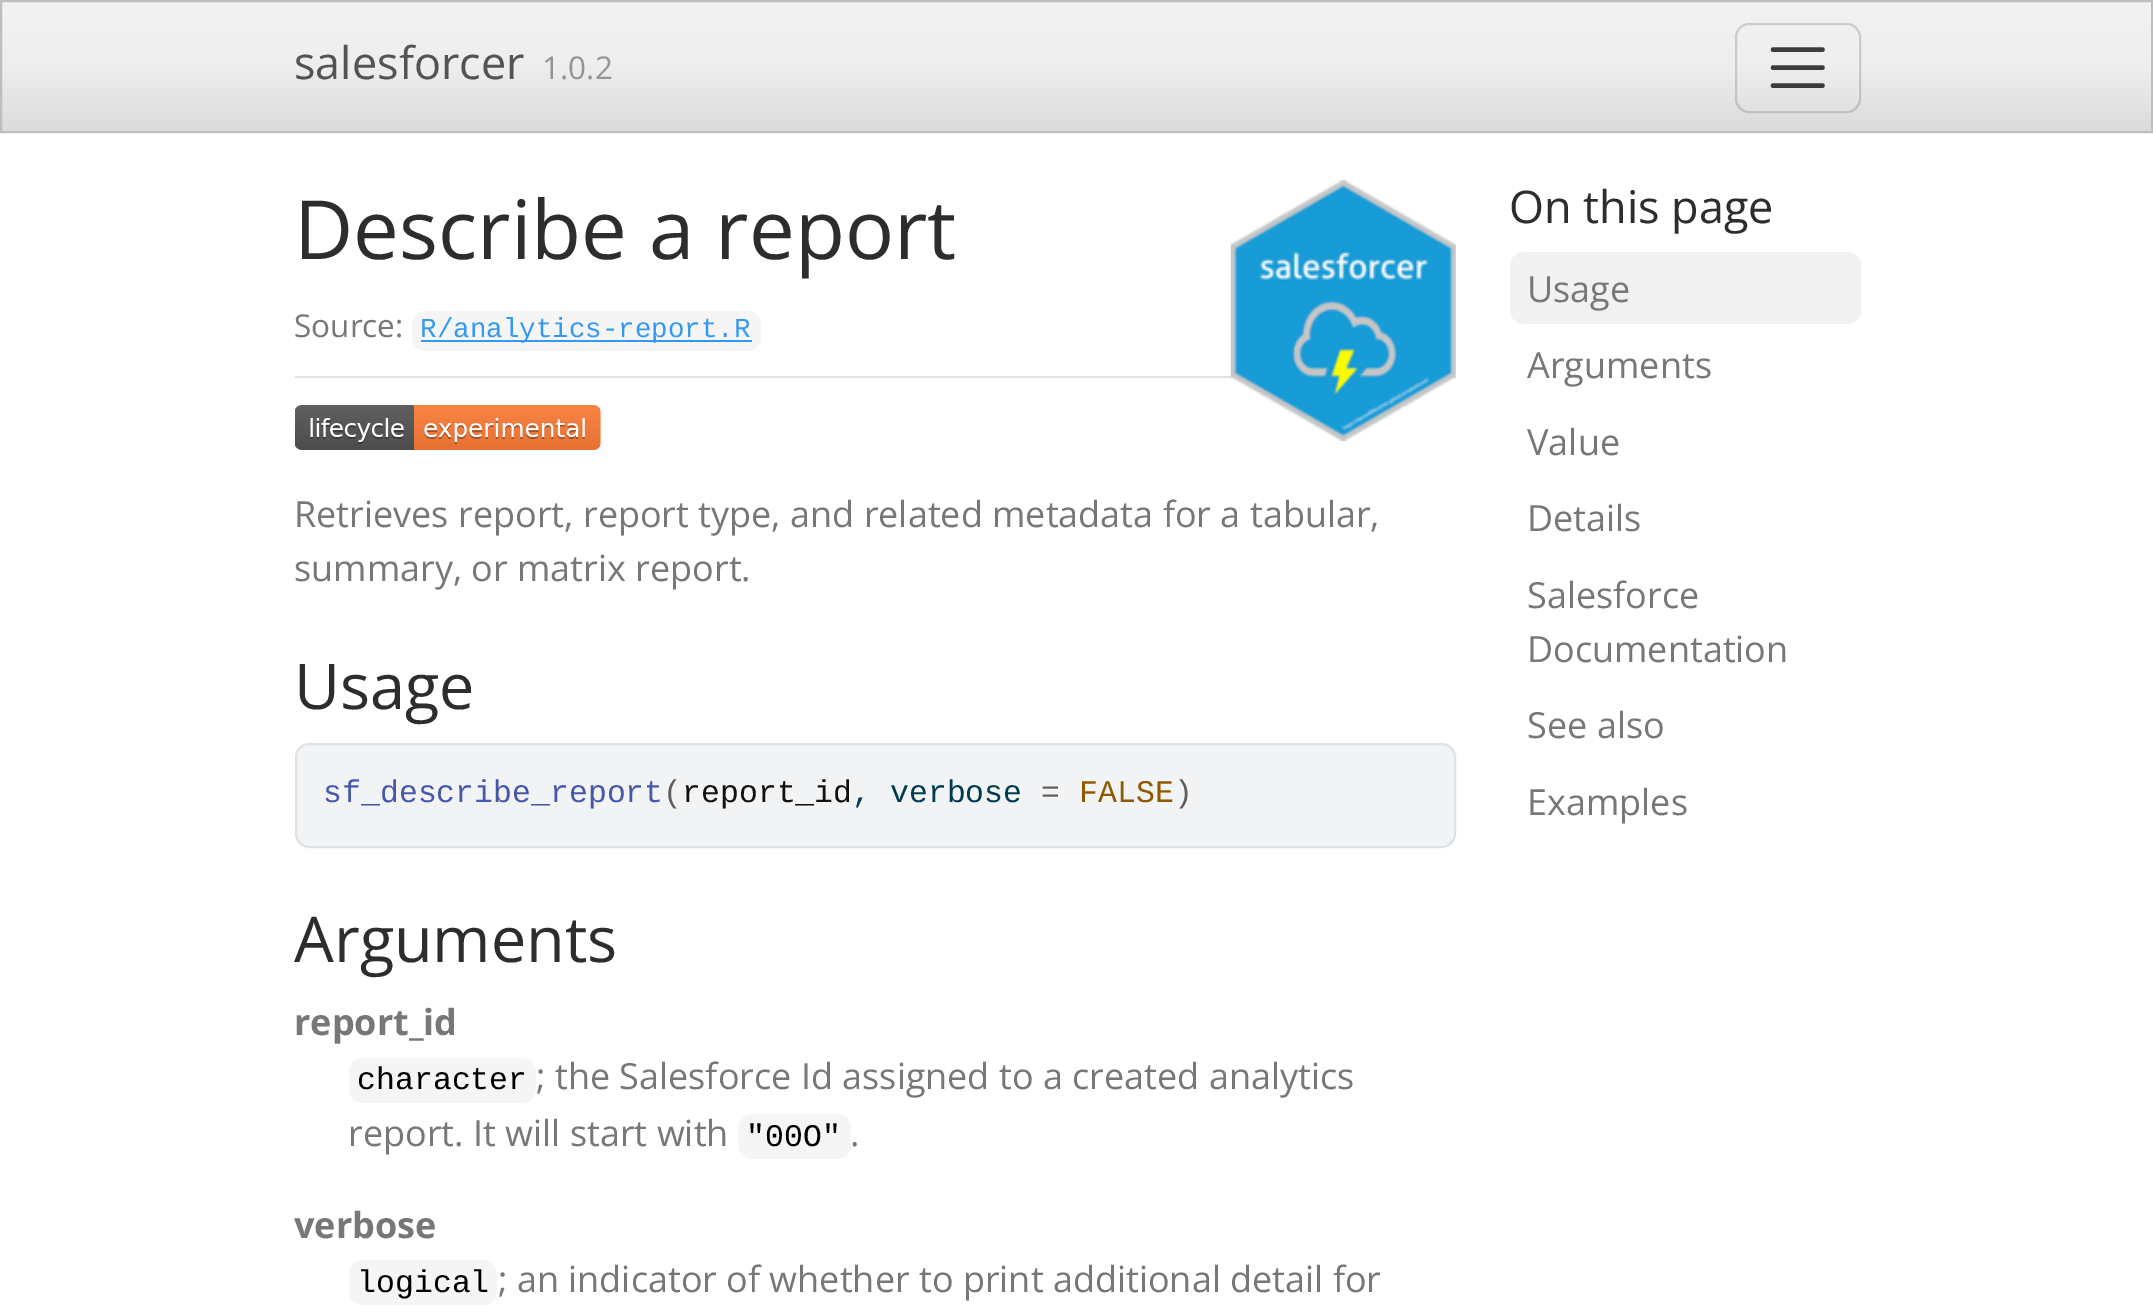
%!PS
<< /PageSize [2153 1315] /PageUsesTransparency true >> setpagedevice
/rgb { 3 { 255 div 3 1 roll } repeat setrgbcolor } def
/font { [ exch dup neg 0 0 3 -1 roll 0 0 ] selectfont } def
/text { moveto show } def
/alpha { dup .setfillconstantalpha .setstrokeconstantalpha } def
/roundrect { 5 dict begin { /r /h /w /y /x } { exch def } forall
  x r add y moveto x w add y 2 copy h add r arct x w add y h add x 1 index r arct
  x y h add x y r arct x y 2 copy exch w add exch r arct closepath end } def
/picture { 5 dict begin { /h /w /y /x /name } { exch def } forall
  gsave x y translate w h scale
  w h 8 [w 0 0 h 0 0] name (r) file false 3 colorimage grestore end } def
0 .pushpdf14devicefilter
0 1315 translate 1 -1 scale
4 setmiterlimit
255 255 255 rgb
0 0 2153 1315 rectfill
gsave 2 2 moveto 2149 0 rlineto 0 129 rlineto -2149 0 rlineto closepath clip newpath
<< /ShadingType 2 /ColorSpace /DeviceRGB /Coords [1077 2.2 1077 131] /Extend [true true] /Function << /FunctionType 3 /Domain [0 1] /Functions [<< /FunctionType 2 /Domain [0 1] /C0 [0.949 0.949 0.949] /C1 [0.933 0.933 0.933] /N 1 >> << /FunctionType 2 /Domain [0 1] /C0 [0.933 0.933 0.933] /C1 [0.859 0.859 0.859] /N 1 >>] /Bounds [0.5] /Encode [0 1 0 1] >> >> shfill grestore
190 190 190 rgb
2 setlinewidth
1 1 2151 131 rectstroke
0.15 alpha
0 0 0 rgb
1736 24 124 88 13 roundrect stroke
0.75 alpha
4.5 setlinewidth
1 setlinecap
1773 49.5 moveto 49.5 0 rlineto 1773 67.5 moveto 49.5 0 rlineto 1773 85.5 moveto 49.5 0 rlineto stroke
1 alpha
222 226 230 rgb
295 376 1161 2 rectfill
(img_01.rgb) 1230 180 226 261 picture
245 245 245 rgb
412 311 349 40 14 roundrect fill
51 153 243 rgb
421 340 331 2 rectfill
(img_02.rgb) 295 405 306 45 picture
241 243 245 rgb
296 744 1159 103 13 roundrect gsave fill grestore
222 226 230 rgb
2 setlinewidth
0 setlinecap
stroke
245 245 245 rgb
349 1058 187 45 14 roundrect fill
738 1114 113 45 14 roundrect fill
349 1260 148 45 14 roundrect fill
241 241 241 rgb
1510 252 351 72 14 roundrect fill
/OpenSans-Regular 45 font
83 83 83 rgb
(salesforcer) 294 79 text
/OpenSans-Regular 31.5 font
148 148 148 rgb
(1.0.2) 542 79 text
/OpenSans-Regular 81.75 font
45 45 45 rgb
(Describe a report) 294 259 text
/OpenSans-Regular 31.5 font
119 119 119 rgb
(Source:) 294 337 text
/LiberationMono-Regular 27.5 font
51 153 243 rgb
(R/analytics-report.R) 420 337 text
/OpenSans-Regular 36 font
119 119 119 rgb
(Retrieves report, report type, and related metadata for a tabular,) 294 527 text
(summary, or matrix report.) 294 581 text
/OpenSans-Regular 63 font
45 45 45 rgb
(Usage) 294 709 text
/LiberationMono-Regular 31.5 font
71 88 171 rgb
(sf_describe_report) 323 802 text
94 94 94 rgb
(\() 663 802 text
17 17 17 rgb
(report_id) 682 802 text
0 59 79 rgb
(, verbose) 852 802 text
94 94 94 rgb
(=) 1041 802 text
143 89 2 rgb
(FALSE) 1079 802 text
94 94 94 rgb
(\)) 1174 802 text
/OpenSans-Regular 63 font
45 45 45 rgb
(Arguments) 294 962 text
/OpenSans-Bold 36 font
119 119 119 rgb
(report_id) 294 1035 text
/LiberationMono-Regular 31.5 font
0 0 0 rgb
(character) 357 1089 text
/OpenSans-Regular 36 font
119 119 119 rgb
(; the Salesforce Id assigned to a created analytics) 536 1089 text
(report. It will start with) 348 1146 text
/LiberationMono-Regular 31.5 font
0 0 0 rgb
("00O") 746 1146 text
/OpenSans-Regular 36 font
119 119 119 rgb
(.) 850 1146 text
/OpenSans-Bold 36 font
(verbose) 294 1238 text
/LiberationMono-Regular 31.5 font
0 0 0 rgb
(logical) 357 1292 text
/OpenSans-Regular 36 font
119 119 119 rgb
(; an indicator of whether to print additional detail for) 498 1292 text
/OpenSans-Regular 45 font
45 45 45 rgb
(On this page) 1509 223 text
/OpenSans-Regular 36 font
119 119 119 rgb
(Usage) 1527 302 text
(Arguments) 1527 378 text
(Value) 1527 455 text
(Details) 1527 531 text
(Salesforce) 1527 608 text
(Documentation) 1527 662 text
(See also) 1527 738 text
(Examples) 1527 815 text
.poppdf14devicefilter showpage
